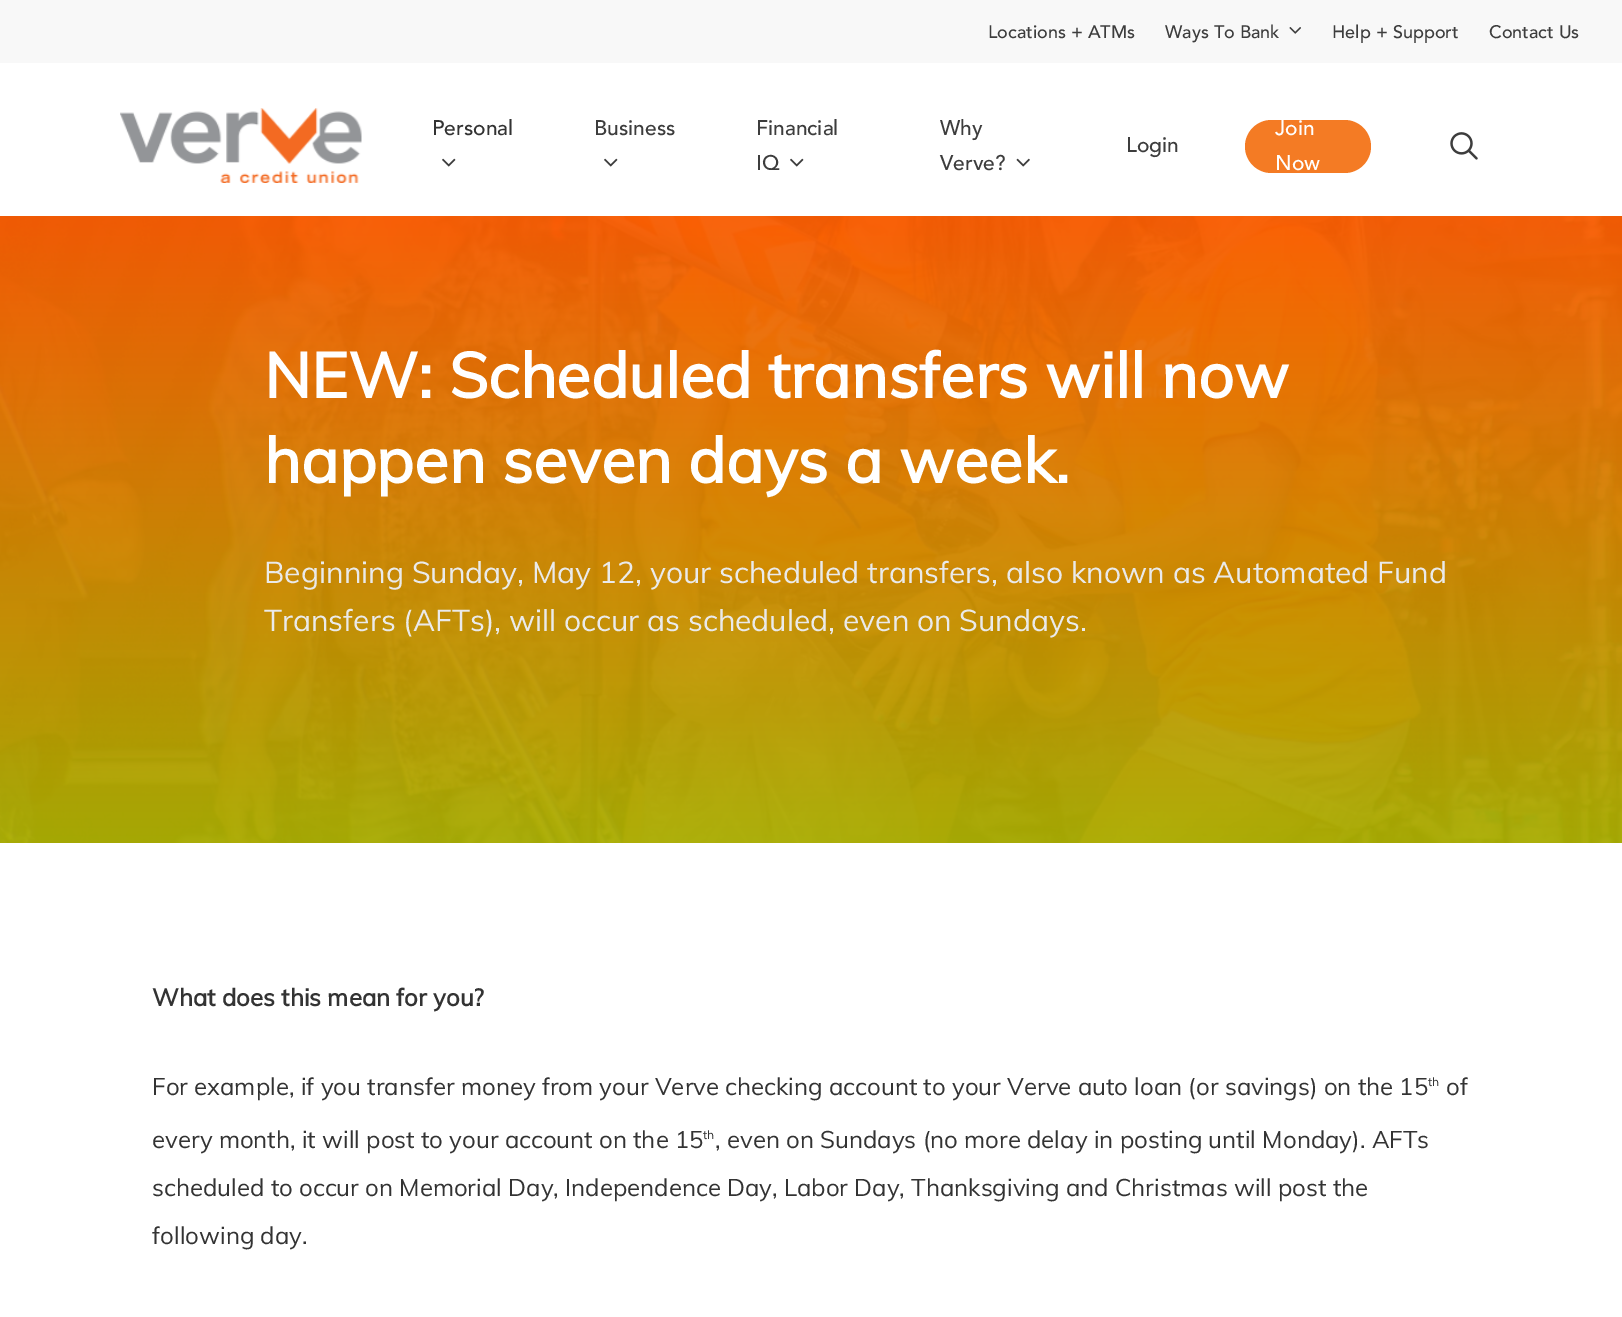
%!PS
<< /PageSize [1622 1317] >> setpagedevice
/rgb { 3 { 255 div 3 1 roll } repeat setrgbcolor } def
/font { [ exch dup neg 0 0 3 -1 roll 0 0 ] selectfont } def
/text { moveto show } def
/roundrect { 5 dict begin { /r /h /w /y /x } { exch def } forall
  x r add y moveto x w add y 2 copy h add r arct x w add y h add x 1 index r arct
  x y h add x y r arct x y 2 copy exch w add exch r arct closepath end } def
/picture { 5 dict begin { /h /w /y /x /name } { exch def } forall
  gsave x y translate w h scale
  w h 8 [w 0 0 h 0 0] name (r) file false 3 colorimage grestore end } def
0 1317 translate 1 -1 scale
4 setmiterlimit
255 255 255 rgb
0 0 1622 1317 rectfill
248 248 248 rgb
0 0 1622 63 rectfill
(img_01.rgb) 1289 27 12 7 picture
(img_02.rgb) 120 108 242 75 picture
(img_03.rgb) 442 158 14 9 picture
(img_03.rgb) 604 158 14 9 picture
(img_03.rgb) 790 158 14 9 picture
(img_04.rgb) 1016 158 14 9 picture
244 123 36 rgb
1245 120 126 53 26.5 roundrect fill
(img_05.rgb) 1450 132 28 28 picture
(img_06.rgb) 0 216 1622 627 picture
/Avenir-Medium 18 font
61 61 61 rgb
(Locations + ATMs) 988 38 text
(Ways To Bank) 1165 38 text
(Help + Support) 1332 38 text
(Contact Us) 1489 38 text
/Avenir-Medium 21 font
51 51 51 rgb
(Personal) 432 135 text
61 61 61 rgb
(Business) 594 135 text
(Financial) 756 135 text
(IQ) 756 170 text
(Why) 940 135 text
(Verve?) 940 170 text
(Login) 1126 152 text
255 255 255 rgb
(Join) 1275 135 text
(Now) 1275 170 text
/Muli-Bold 63 font
(NEW: Scheduled transfers will now) 264 398 text
(happen seven days a week.) 264 483 text
/Muli-Regular 30 font
234 234 234 rgb
(Beginning Sunday, May 12, your scheduled transfers, also known as Automated Fund) 264 583 text
(Transfers \(AFTs\), will occur as scheduled, even on Sundays.) 264 631 text
/Muli-Bold 24 font
51 51 51 rgb
(What does this mean for you?) 152 1006 text
/Muli-Regular 24 font
(For example, if you transfer money from your Verve checking account to your Verve auto loan \(or savings\) on the 15) 152 1095 text
/Muli-Regular 12 font
(th) 1428 1086 text
/Muli-Regular 24 font
(of) 1446 1095 text
(every month, it will post to your account on the 15) 152 1148 text
/Muli-Regular 12 font
(th) 703 1139 text
/Muli-Regular 24 font
(, even on Sundays \(no more delay in posting until Monday\). AFTs) 715 1148 text
(scheduled to occur on Memorial Day, Independence Day, Labor Day, Thanksgiving and Christmas will post the) 152 1196 text
(following day.) 152 1244 text
showpage
